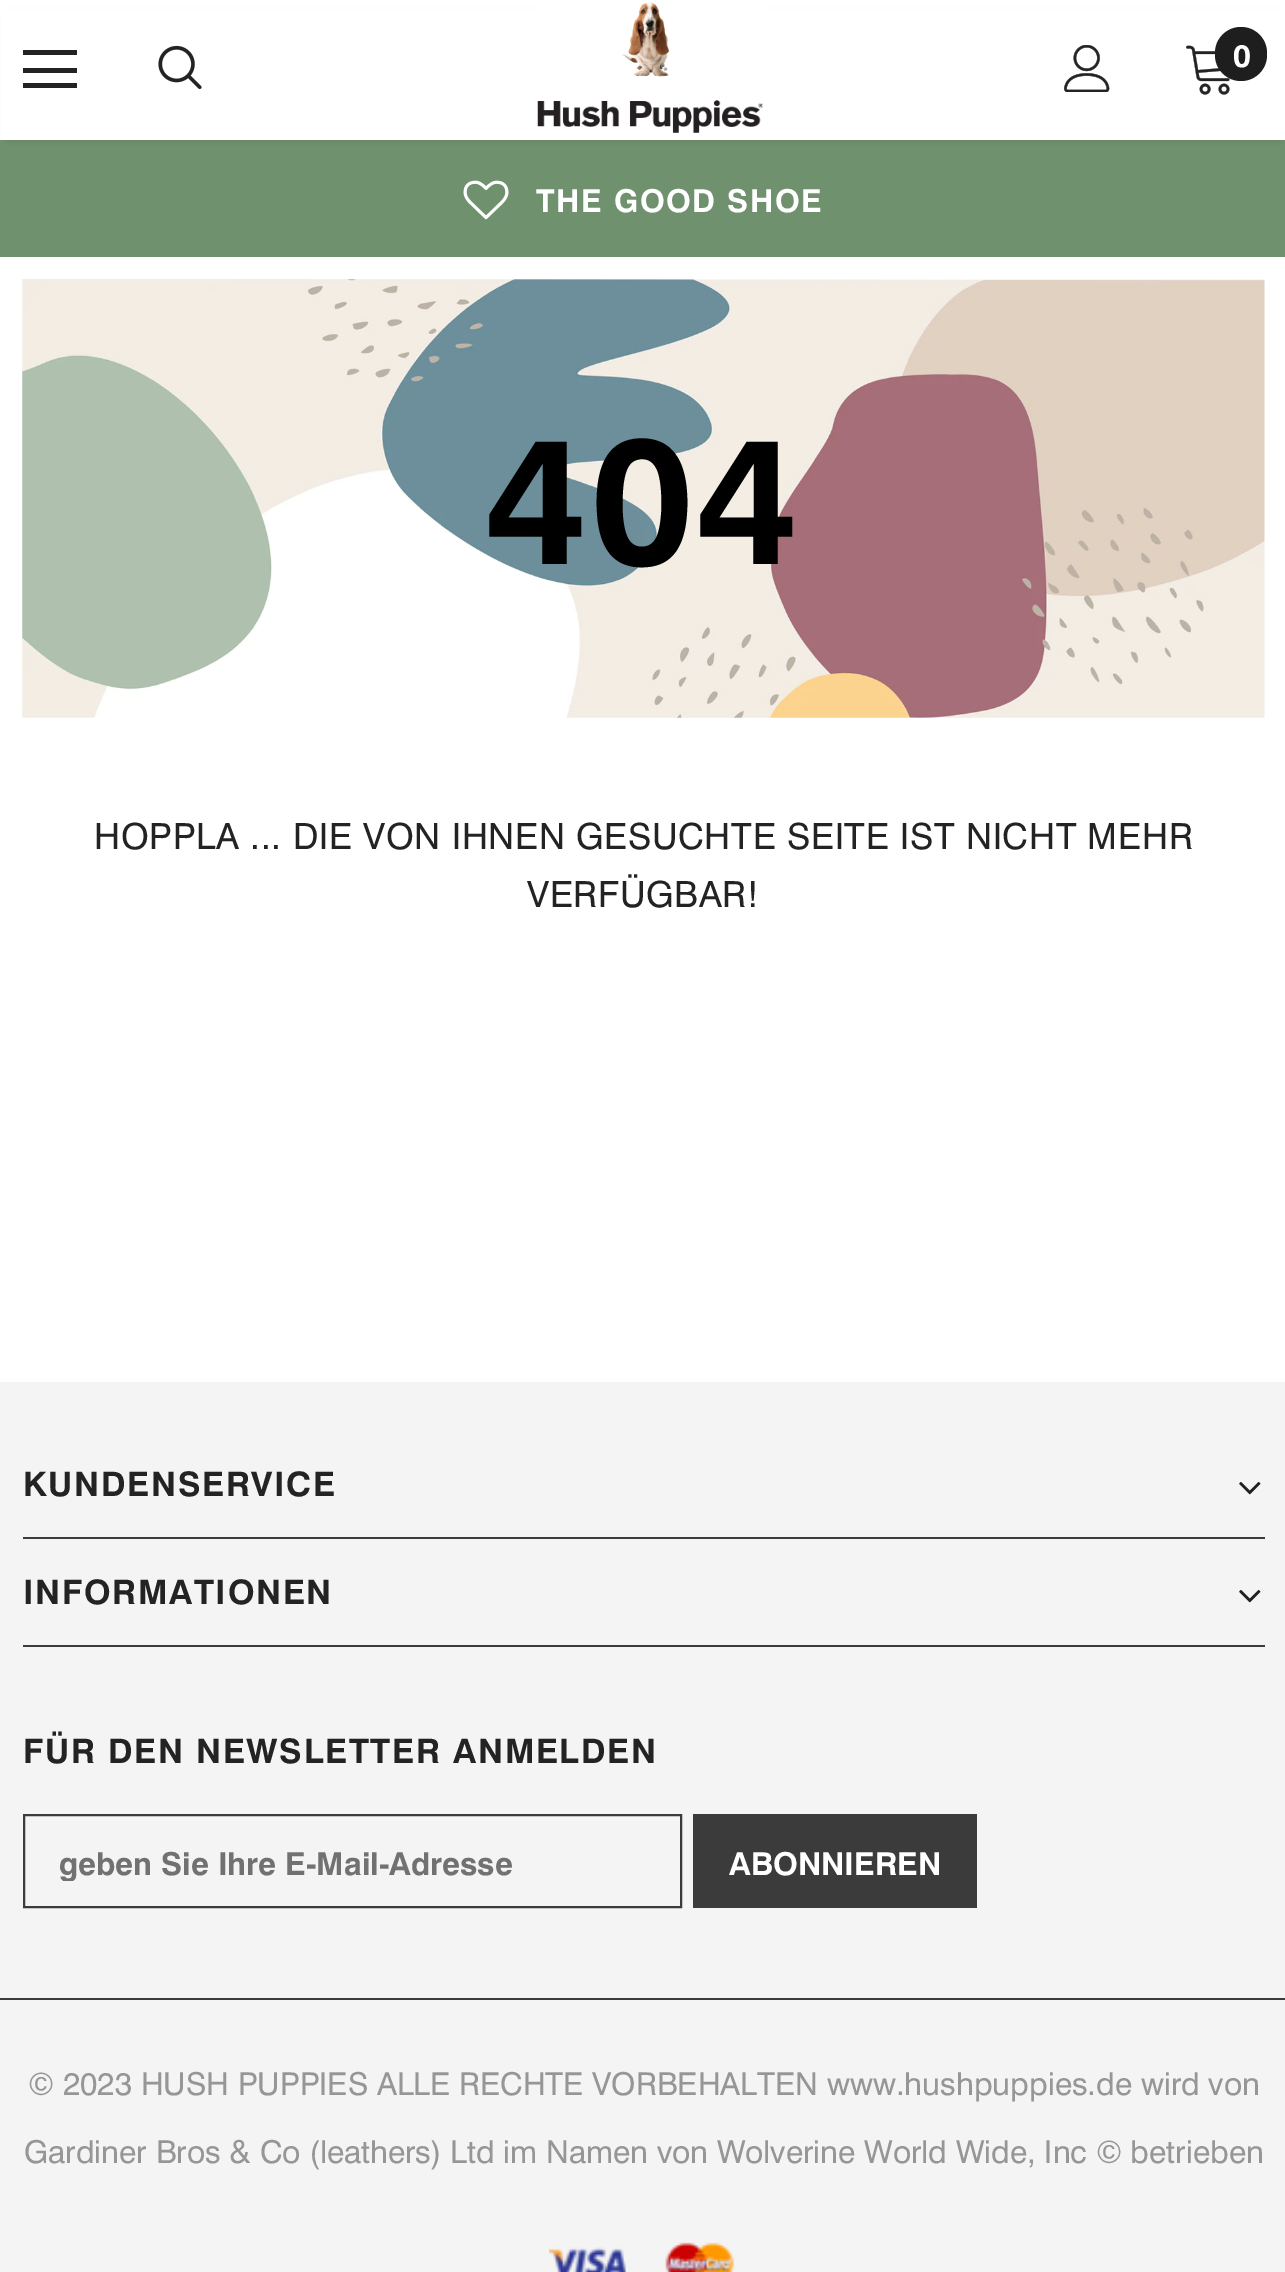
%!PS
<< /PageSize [1285 2272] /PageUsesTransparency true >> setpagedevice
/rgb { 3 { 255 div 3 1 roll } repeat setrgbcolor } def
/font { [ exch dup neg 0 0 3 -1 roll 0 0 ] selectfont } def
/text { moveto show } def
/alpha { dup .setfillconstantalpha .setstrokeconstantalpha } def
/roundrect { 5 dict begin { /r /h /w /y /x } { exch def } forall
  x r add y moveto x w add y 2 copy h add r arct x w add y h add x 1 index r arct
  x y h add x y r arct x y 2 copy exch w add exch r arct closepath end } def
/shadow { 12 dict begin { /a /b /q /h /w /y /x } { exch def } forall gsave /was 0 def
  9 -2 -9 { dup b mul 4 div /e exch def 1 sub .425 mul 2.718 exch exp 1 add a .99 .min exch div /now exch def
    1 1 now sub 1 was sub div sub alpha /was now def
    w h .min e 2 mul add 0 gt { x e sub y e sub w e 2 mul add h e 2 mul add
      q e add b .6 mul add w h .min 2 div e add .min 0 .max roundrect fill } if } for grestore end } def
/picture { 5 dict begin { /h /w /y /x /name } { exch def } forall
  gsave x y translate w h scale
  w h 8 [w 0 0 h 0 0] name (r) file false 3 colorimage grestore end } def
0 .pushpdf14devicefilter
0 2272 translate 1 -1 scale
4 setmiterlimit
255 255 255 rgb
0 0 1285 2272 rectfill
112 145 110 rgb
0 140 1285 117 rectfill
0 0 0 rgb
7 14 1273 126 0 3.5 0.12 shadow
255 255 255 rgb
2 9 1283 131 rectfill
35 35 35 rgb
23 50 54 5 rectfill
23 68 54 5 rectfill
23 83 54 5 rectfill
(img_01.rgb) 158 45 44 45 picture
(img_02.rgb) 537 2 226 131 picture
(img_03.rgb) 1064 45 46 47 picture
(img_04.rgb) 1186 45 44 50 picture
30 30 30 rgb
1215 27 52 54 26 roundrect fill
(img_05.rgb) 463 180 46 40 picture
(img_06.rgb) 22 279 1243 439 picture
244 244 244 rgb
0 1382 1285 890 rectfill
59 59 59 rgb
23 1537 1242 2 rectfill
(img_07.rgb) 1239 1482 22 13 picture
23 1645 1242 2 rectfill
(img_07.rgb) 1239 1590 22 13 picture
2 setlinewidth
24 1815 657 92 rectstroke
693 1814 284 94 rectfill
0 1998 1285 2 rectfill
(img_08.rgb) 549 2247 77 25 picture
(img_09.rgb) 665 2242 70 30 picture
/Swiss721-Bold 31.5 font
255 255 255 rgb
(0) 1233 67 text
536 212 moveto 1.5 0 (THE GOOD SHOE) ashow
/Swiss721-Bold 180 font
0 0 0 rgb
485 564 moveto 3.5 0 (404) ashow
/Swiss721-Regular 36 font
35 35 35 rgb
94 849 moveto 0.72 0 (HOPPLA ... DIE VON IHNEN GESUCHTE SEITE IST NICHT MEHR) ashow
527 907 moveto 0.72 0 (VERFÜGBAR!) ashow
/Swiss721-Bold 33.75 font
23 1496 moveto 1.7 0 (KUNDENSERVICE) ashow
23 1604 moveto 1.7 0 (INFORMATIONEN) ashow
23 1763 moveto 1.7 0 (FÜR DEN NEWSLETTER ANMELDEN) ashow
gsave
59 1843 587 38 rectclip
/Swiss721-Bold 31.5 font
113 113 113 rgb
(geben Sie Ihre E-Mail-Adresse) 59 1875 text
grestore
/Swiss721-Bold 31.5 font
255 255 255 rgb
(ABONNIEREN) 729 1875 text
/Swiss721-Regular 31.5 font
150 150 150 rgb
(© 2023 HUSH PUPPIES ALLE RECHTE VORBEHALTEN www.hushpuppies.de wird von) 28 2095 text
(Gardiner Bros & Co \(leathers\) Ltd im Namen von Wolverine World Wide, Inc © betrieben) 24 2163 text
.poppdf14devicefilter showpage
